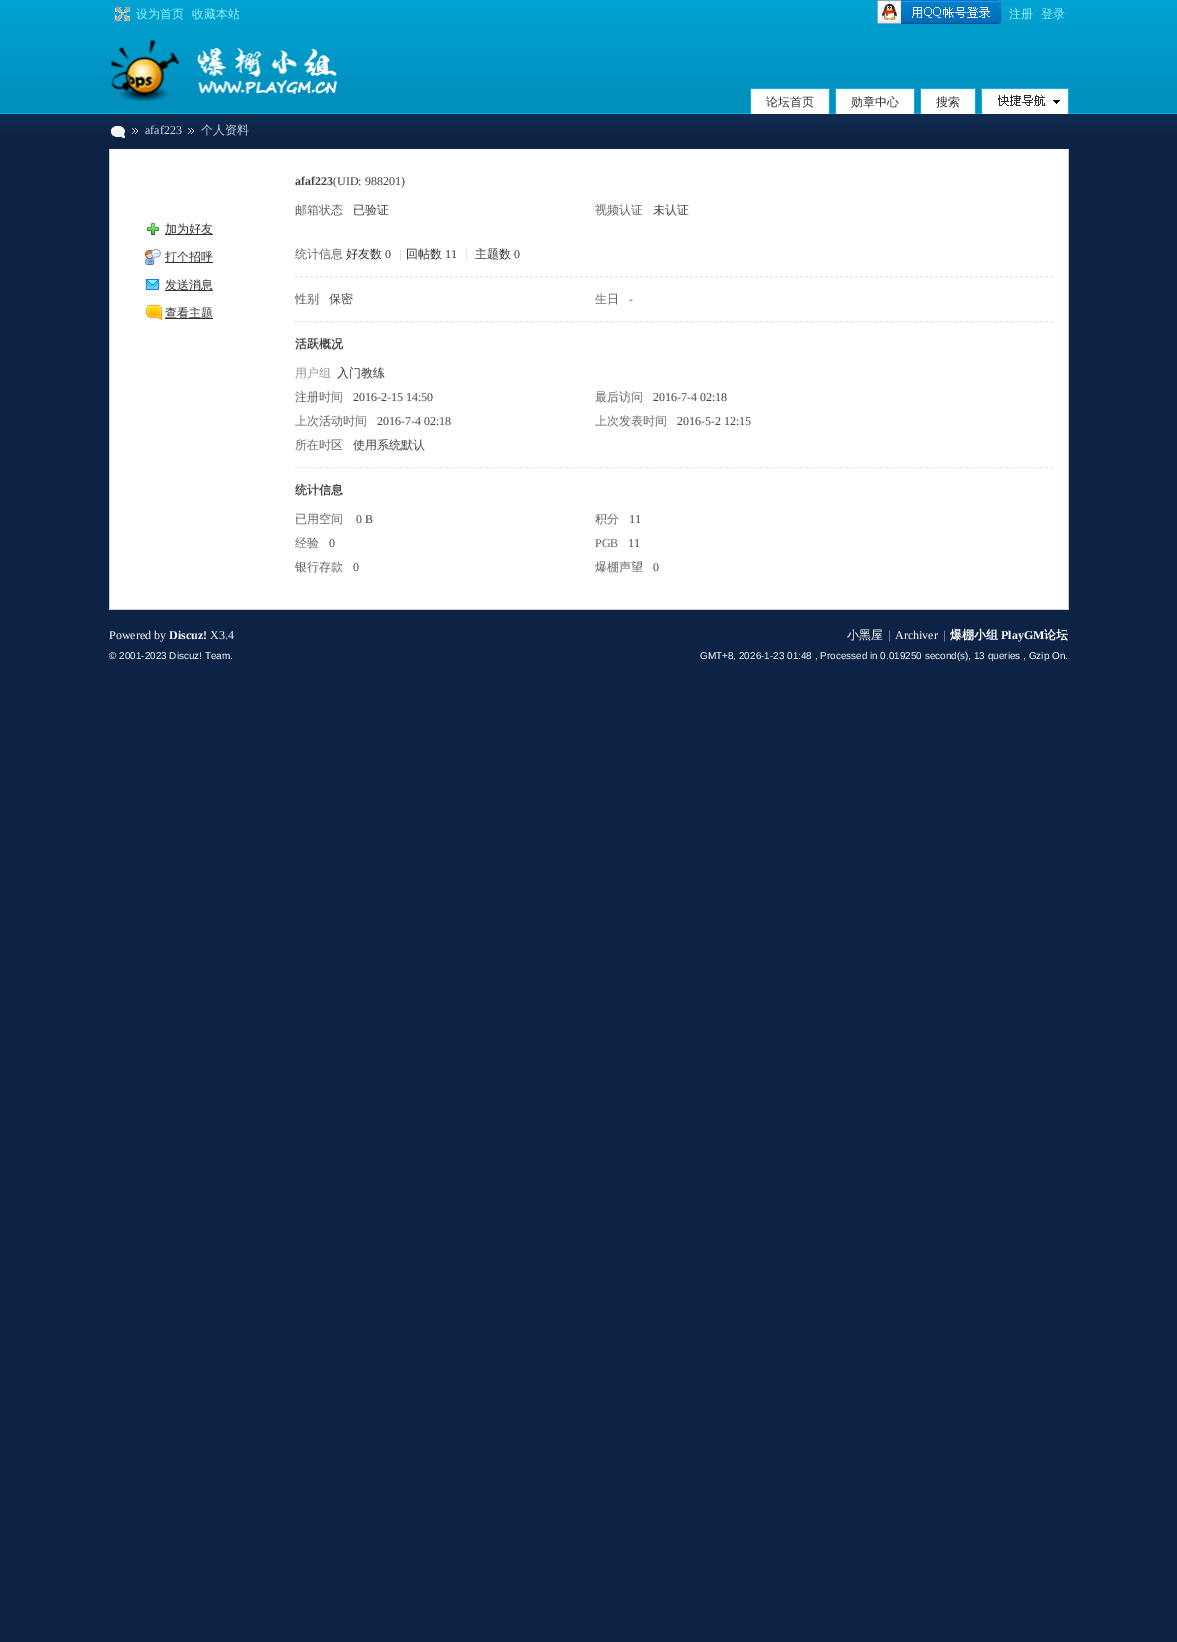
%!PS
<< /PageSize [1177 1642] >> setpagedevice
/rgb { 3 { 255 div 3 1 roll } repeat setrgbcolor } def
/font { [ exch dup neg 0 0 3 -1 roll 0 0 ] selectfont } def
/text { moveto show } def
/picture { 5 dict begin { /h /w /y /x /name } { exch def } forall
  gsave x y translate w h scale
  w h 8 [w 0 0 h 0 0] name (r) file false 3 colorimage grestore end } def
0 1642 translate 1 -1 scale
4 setmiterlimit
13 35 69 rgb
0 0 1177 1642 rectfill
(img_01.rgb) 0 114 1177 19 picture
(img_02.rgb) 0 0 1177 114 picture
(img_03.rgb) 115 7 15 14 picture
(img_04.rgb) 877 0 124 24 picture
(img_05.rgb) 111 40 226 62 picture
255 255 255 rgb
751 89 78 25 rectfill
0 178 232 rgb
750 88 80 1 rectfill
829 88 1 26 rectfill
750 88 1 26 rectfill
255 255 255 rgb
836 89 78 25 rectfill
0 178 232 rgb
835 88 80 1 rectfill
914 88 1 26 rectfill
835 88 1 26 rectfill
255 255 255 rgb
921 89 54 25 rectfill
0 178 232 rgb
920 88 56 1 rectfill
975 88 1 26 rectfill
920 88 1 26 rectfill
(img_06.rgb) 981 88 88 26 picture
(img_07.rgb) 111 126 14 12 picture
(img_08.rgb) 132 128 6 6 picture
(img_08.rgb) 188 128 6 6 picture
255 255 255 rgb
110 149 958 460 rectfill
204 204 204 rgb
1068 149 1 461 rectfill
109 609 960 1 rectfill
109 149 1 461 rectfill
(img_09.rgb) 147 223 12 12 picture
51 51 51 rgb
165 234 48 1 rectfill
(img_10.rgb) 145 249 16 16 picture
165 262 48 1 rectfill
(img_11.rgb) 146 279 13 11 picture
165 290 48 1 rectfill
(img_12.rgb) 146 305 16 15 picture
165 318 48 1 rectfill
230 231 225 rgb
[3 2] 0 setdash
295 321.5 moveto 758 0 rlineto stroke
295 276.5 moveto 758 0 rlineto stroke
295 467.5 moveto 758 0 rlineto stroke
/WenQuanYiZenHei-Medium 12 font
151 242 255 rgb
(设为首页) 136 18 text
(收藏本站) 192 18 text
(注册) 1009 18 text
(登录) 1041 18 text
51 51 51 rgb
(论坛首页) 766 106 text
(勋章中心) 851 106 text
(搜索) 936 106 text
/LiberationSerif-Regular 12 font
195 211 228 rgb
(afaf223) 145 134 text
/WenQuanYiZenHei-Medium 12 font
(个人资料) 201 134 text
51 51 51 rgb
(加为好友) 165 233 text
(打个招呼) 165 261 text
(发送消息) 165 289 text
(查看主题) 165 317 text
/LiberationSerif-Bold 12 font
68 68 68 rgb
(afaf223) 295 185 text
/LiberationSerif-Regular 12 font
(\(UID: 988201\)) 333 185 text
/WenQuanYiZenHei-Medium 12 font
102 102 102 rgb
(邮箱状态) 295 214 text
68 68 68 rgb
(已验证) 353 214 text
102 102 102 rgb
(视频认证) 595 214 text
68 68 68 rgb
(未认证) 653 214 text
102 102 102 rgb
(统计信息) 295 258 text
51 51 51 rgb
(好友数) 346 258 text
/LiberationSerif-Regular 12 font
(0) 385 258 text
204 204 204 rgb
(|) 399 258 text
/WenQuanYiZenHei-Medium 12 font
51 51 51 rgb
(回帖数) 406 258 text
/LiberationSerif-Regular 12 font
(11) 445 258 text
204 204 204 rgb
(|) 465 258 text
/WenQuanYiZenHei-Medium 12 font
51 51 51 rgb
(主题数) 475 258 text
/LiberationSerif-Regular 12 font
(0) 514 258 text
/WenQuanYiZenHei-Medium 12 font
102 102 102 rgb
(性别) 295 303 text
68 68 68 rgb
(保密) 329 303 text
102 102 102 rgb
(生日) 595 303 text
/LiberationSerif-Regular 12 font
68 68 68 rgb
(-) 629 303 text
/WenQuanYiZenHei-Bold 12 font
(活跃概况) 295 348 text
/WenQuanYiZenHei-Medium 12 font
153 153 153 rgb
(用户组) 295 377 text
51 51 51 rgb
(入门教练) 337 377 text
102 102 102 rgb
(注册时间) 295 401 text
/LiberationSerif-Regular 12 font
68 68 68 rgb
(2016-2-15 14:50) 353 401 text
/WenQuanYiZenHei-Medium 12 font
102 102 102 rgb
(最后访问) 595 401 text
/LiberationSerif-Regular 12 font
68 68 68 rgb
(2016-7-4 02:18) 653 401 text
/WenQuanYiZenHei-Medium 12 font
102 102 102 rgb
(上次活动时间) 295 425 text
/LiberationSerif-Regular 12 font
68 68 68 rgb
(2016-7-4 02:18) 377 425 text
/WenQuanYiZenHei-Medium 12 font
102 102 102 rgb
(上次发表时间) 595 425 text
/LiberationSerif-Regular 12 font
68 68 68 rgb
(2016-5-2 12:15) 677 425 text
/WenQuanYiZenHei-Medium 12 font
102 102 102 rgb
(所在时区) 295 449 text
68 68 68 rgb
(使用系统默认) 353 449 text
/WenQuanYiZenHei-Bold 12 font
(统计信息) 295 494 text
/WenQuanYiZenHei-Medium 12 font
102 102 102 rgb
(已用空间) 295 523 text
/LiberationSerif-Regular 12 font
68 68 68 rgb
(0 B) 356 523 text
/WenQuanYiZenHei-Medium 12 font
102 102 102 rgb
(积分) 595 523 text
/LiberationSerif-Regular 12 font
68 68 68 rgb
(11) 629 523 text
/WenQuanYiZenHei-Medium 12 font
102 102 102 rgb
(经验) 295 547 text
/LiberationSerif-Regular 12 font
68 68 68 rgb
(0) 329 547 text
102 102 102 rgb
(PGB) 595 547 text
68 68 68 rgb
(11) 628 547 text
/WenQuanYiZenHei-Medium 12 font
102 102 102 rgb
(银行存款) 295 571 text
/LiberationSerif-Regular 12 font
68 68 68 rgb
(0) 353 571 text
/WenQuanYiZenHei-Medium 12 font
102 102 102 rgb
(爆棚声望) 595 571 text
/LiberationSerif-Regular 12 font
68 68 68 rgb
(0) 653 571 text
255 255 255 rgb
(Powered by) 109 639 text
/LiberationSerif-Bold 12 font
(Discuz!) 169 639 text
/LiberationSerif-Regular 12 font
(X3.4) 210 639 text
/LiberationSans-Regular 9.95 font
(© 2001-2023 Discuz! Team.) 109 659 text
/WenQuanYiZenHei-Medium 12 font
(小黑屋) 847 639 text
/LiberationSerif-Regular 12 font
204 204 204 rgb
(|) 888 639 text
255 255 255 rgb
(Archiver) 895 639 text
204 204 204 rgb
(|) 943 639 text
/WenQuanYiZenHei-Bold 12 font
255 255 255 rgb
(爆棚小组) 950 639 text
/LiberationSerif-Bold 12 font
(PlayGM) 1001 639 text
/WenQuanYiZenHei-Bold 12 font
(论坛) 1044 639 text
/LiberationSans-Regular 9.95 font
(GMT+8, 2026-1-23 01:48 , Processed in 0.019250 second\(s\), 13 queries , Gzip On.) 700 659 text
showpage
